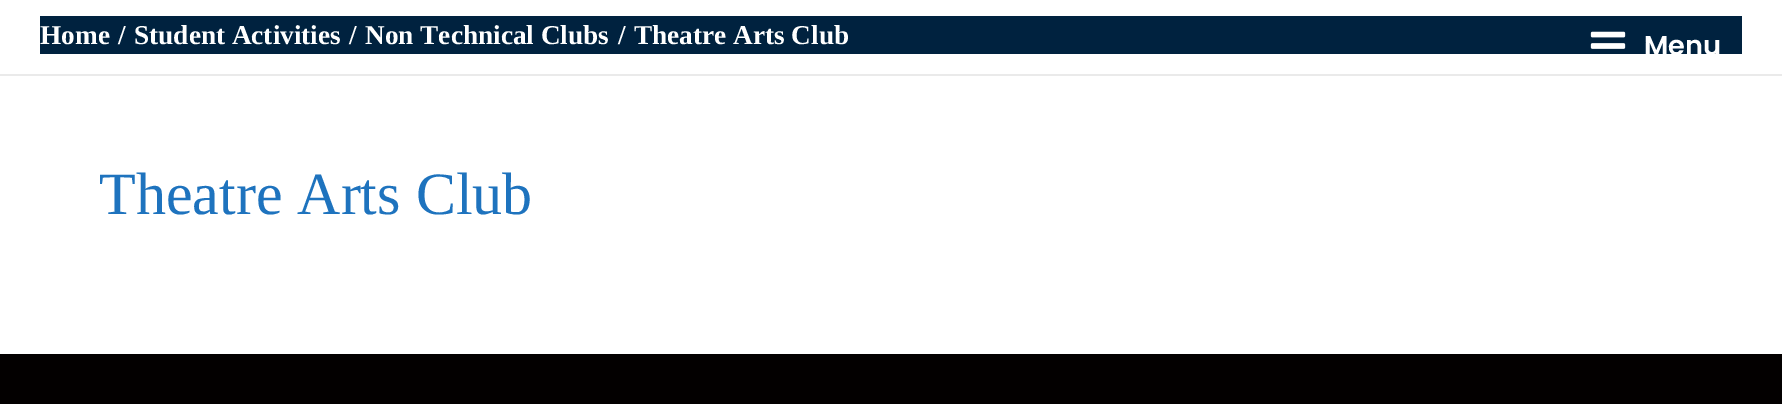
%!PS
<< /PageSize [1782 404] >> setpagedevice
/rgb { 3 { 255 div 3 1 roll } repeat setrgbcolor } def
/font { [ exch dup neg 0 0 3 -1 roll 0 0 ] selectfont } def
/text { moveto show } def
/picture { 5 dict begin { /h /w /y /x /name } { exch def } forall
  gsave x y translate w h scale
  w h 8 [w 0 0 h 0 0] name (r) file false 3 colorimage grestore end } def
0 404 translate 1 -1 scale
4 setmiterlimit
255 255 255 rgb
0 0 1782 404 rectfill
234 234 234 rgb
0 74 1782 2 rectfill
0 34 63 rgb
40 16 1702 38 rectfill
(img_01.rgb) 1590 31 36 18 picture
3 0 0 rgb
0 354 1782 50 rectfill
/LiberationSerif-Bold 27.25 font
255 255 255 rgb
(Home) 40 44 text
(/) 118 44 text
(Student Activities) 134 44 text
(/) 349 44 text
(Non Technical Clubs) 365 44 text
(/) 618 44 text
(Theatre Arts Club) 634 44 text
/Poppins-SemiBold 27.25 font
(Menu) 1644 55 text
/LiberationSerif-Regular 60 font
30 115 190 rgb
(Theatre Arts Club) 99 214 text
showpage
